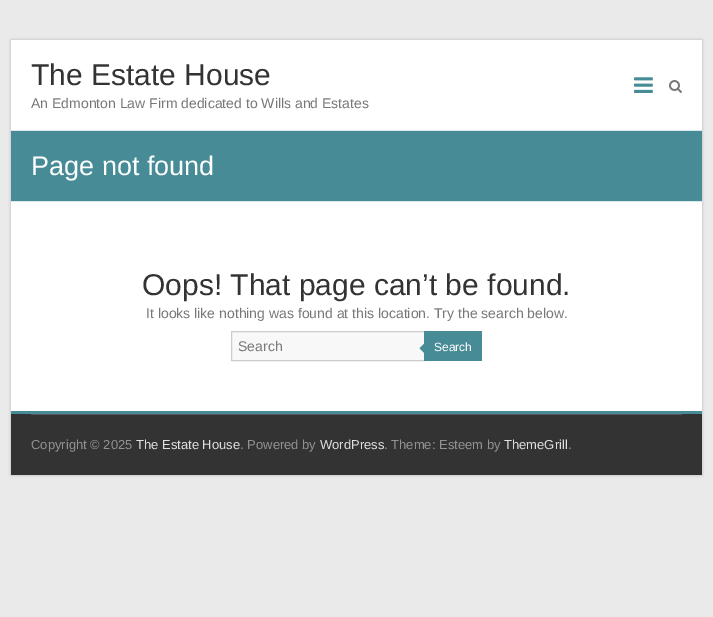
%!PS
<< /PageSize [713 617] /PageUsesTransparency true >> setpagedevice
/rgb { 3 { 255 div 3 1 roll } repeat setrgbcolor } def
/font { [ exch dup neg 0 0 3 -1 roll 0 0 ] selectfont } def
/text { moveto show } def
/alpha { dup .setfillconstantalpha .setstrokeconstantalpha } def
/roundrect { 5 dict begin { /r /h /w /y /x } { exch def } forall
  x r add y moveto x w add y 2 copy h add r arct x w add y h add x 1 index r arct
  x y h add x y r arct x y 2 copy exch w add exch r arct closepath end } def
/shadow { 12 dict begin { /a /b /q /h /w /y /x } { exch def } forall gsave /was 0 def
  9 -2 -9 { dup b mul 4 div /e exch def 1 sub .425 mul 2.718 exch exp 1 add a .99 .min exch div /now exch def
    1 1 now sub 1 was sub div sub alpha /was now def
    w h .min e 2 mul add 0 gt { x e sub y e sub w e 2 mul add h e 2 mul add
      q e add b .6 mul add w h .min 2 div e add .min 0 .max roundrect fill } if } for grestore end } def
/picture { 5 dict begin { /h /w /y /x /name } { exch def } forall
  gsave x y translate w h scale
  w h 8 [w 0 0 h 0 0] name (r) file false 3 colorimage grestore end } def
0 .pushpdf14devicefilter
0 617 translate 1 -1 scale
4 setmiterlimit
234 234 234 rgb
0 0 713 617 rectfill
0 0 0 rgb
11 40 691 435 0 1.5 0.2 shadow
255 255 255 rgb
11 40 691 371 rectfill
(img_01.rgb) 634 77 19 16 picture
(img_02.rgb) 669 80 13 13 picture
70 139 150 rgb
11 131 691 70 rectfill
218 232 234 rgb
11 130 691 1 rectfill
11 201 691 1 rectfill
248 248 248 rgb
232 332 192 28 rectfill
204 204 204 rgb
231.5 331.5 194 29 rectstroke
70 139 150 rgb
424 331 58 30 rectfill
(img_03.rgb) 419 343 5 10 picture
51 51 51 rgb
11 414 691 61 rectfill
70 139 150 rgb
11 411 691 3 rectfill
82 88 91 rgb
31 414 651 1 rectfill
/LiberationSans-Regular 30 font
51 51 51 rgb
(The Estate House) 31 85 text
/LiberationSans-Regular 14 font
119 119 119 rgb
(An Edmonton Law Firm dedicated to Wills and Estates) 31 108 text
/LiberationSans-Regular 27 font
255 255 255 rgb
(Page not found) 31 175 text
/LiberationSans-Regular 30 font
51 51 51 rgb
(Oops! That page can’t be found.) 142 295 text
/LiberationSans-Regular 14 font
119 119 119 rgb
(It looks like nothing was found at this location. Try the search below.) 146 318 text
(Search) 238 351 text
/LiberationSans-Regular 12 font
255 255 255 rgb
(Search) 434 351 text
/LiberationSans-Regular 13 font
144 146 148 rgb
(Copyright © 2025) 31 449 text
224 224 224 rgb
(The Estate House) 136 449 text
144 146 148 rgb
(. Powered by) 240 449 text
224 224 224 rgb
(WordPress) 320 449 text
144 146 148 rgb
(. Theme: Esteem by) 384 449 text
224 224 224 rgb
(ThemeGrill) 504 449 text
144 146 148 rgb
(.) 568 449 text
.poppdf14devicefilter showpage
